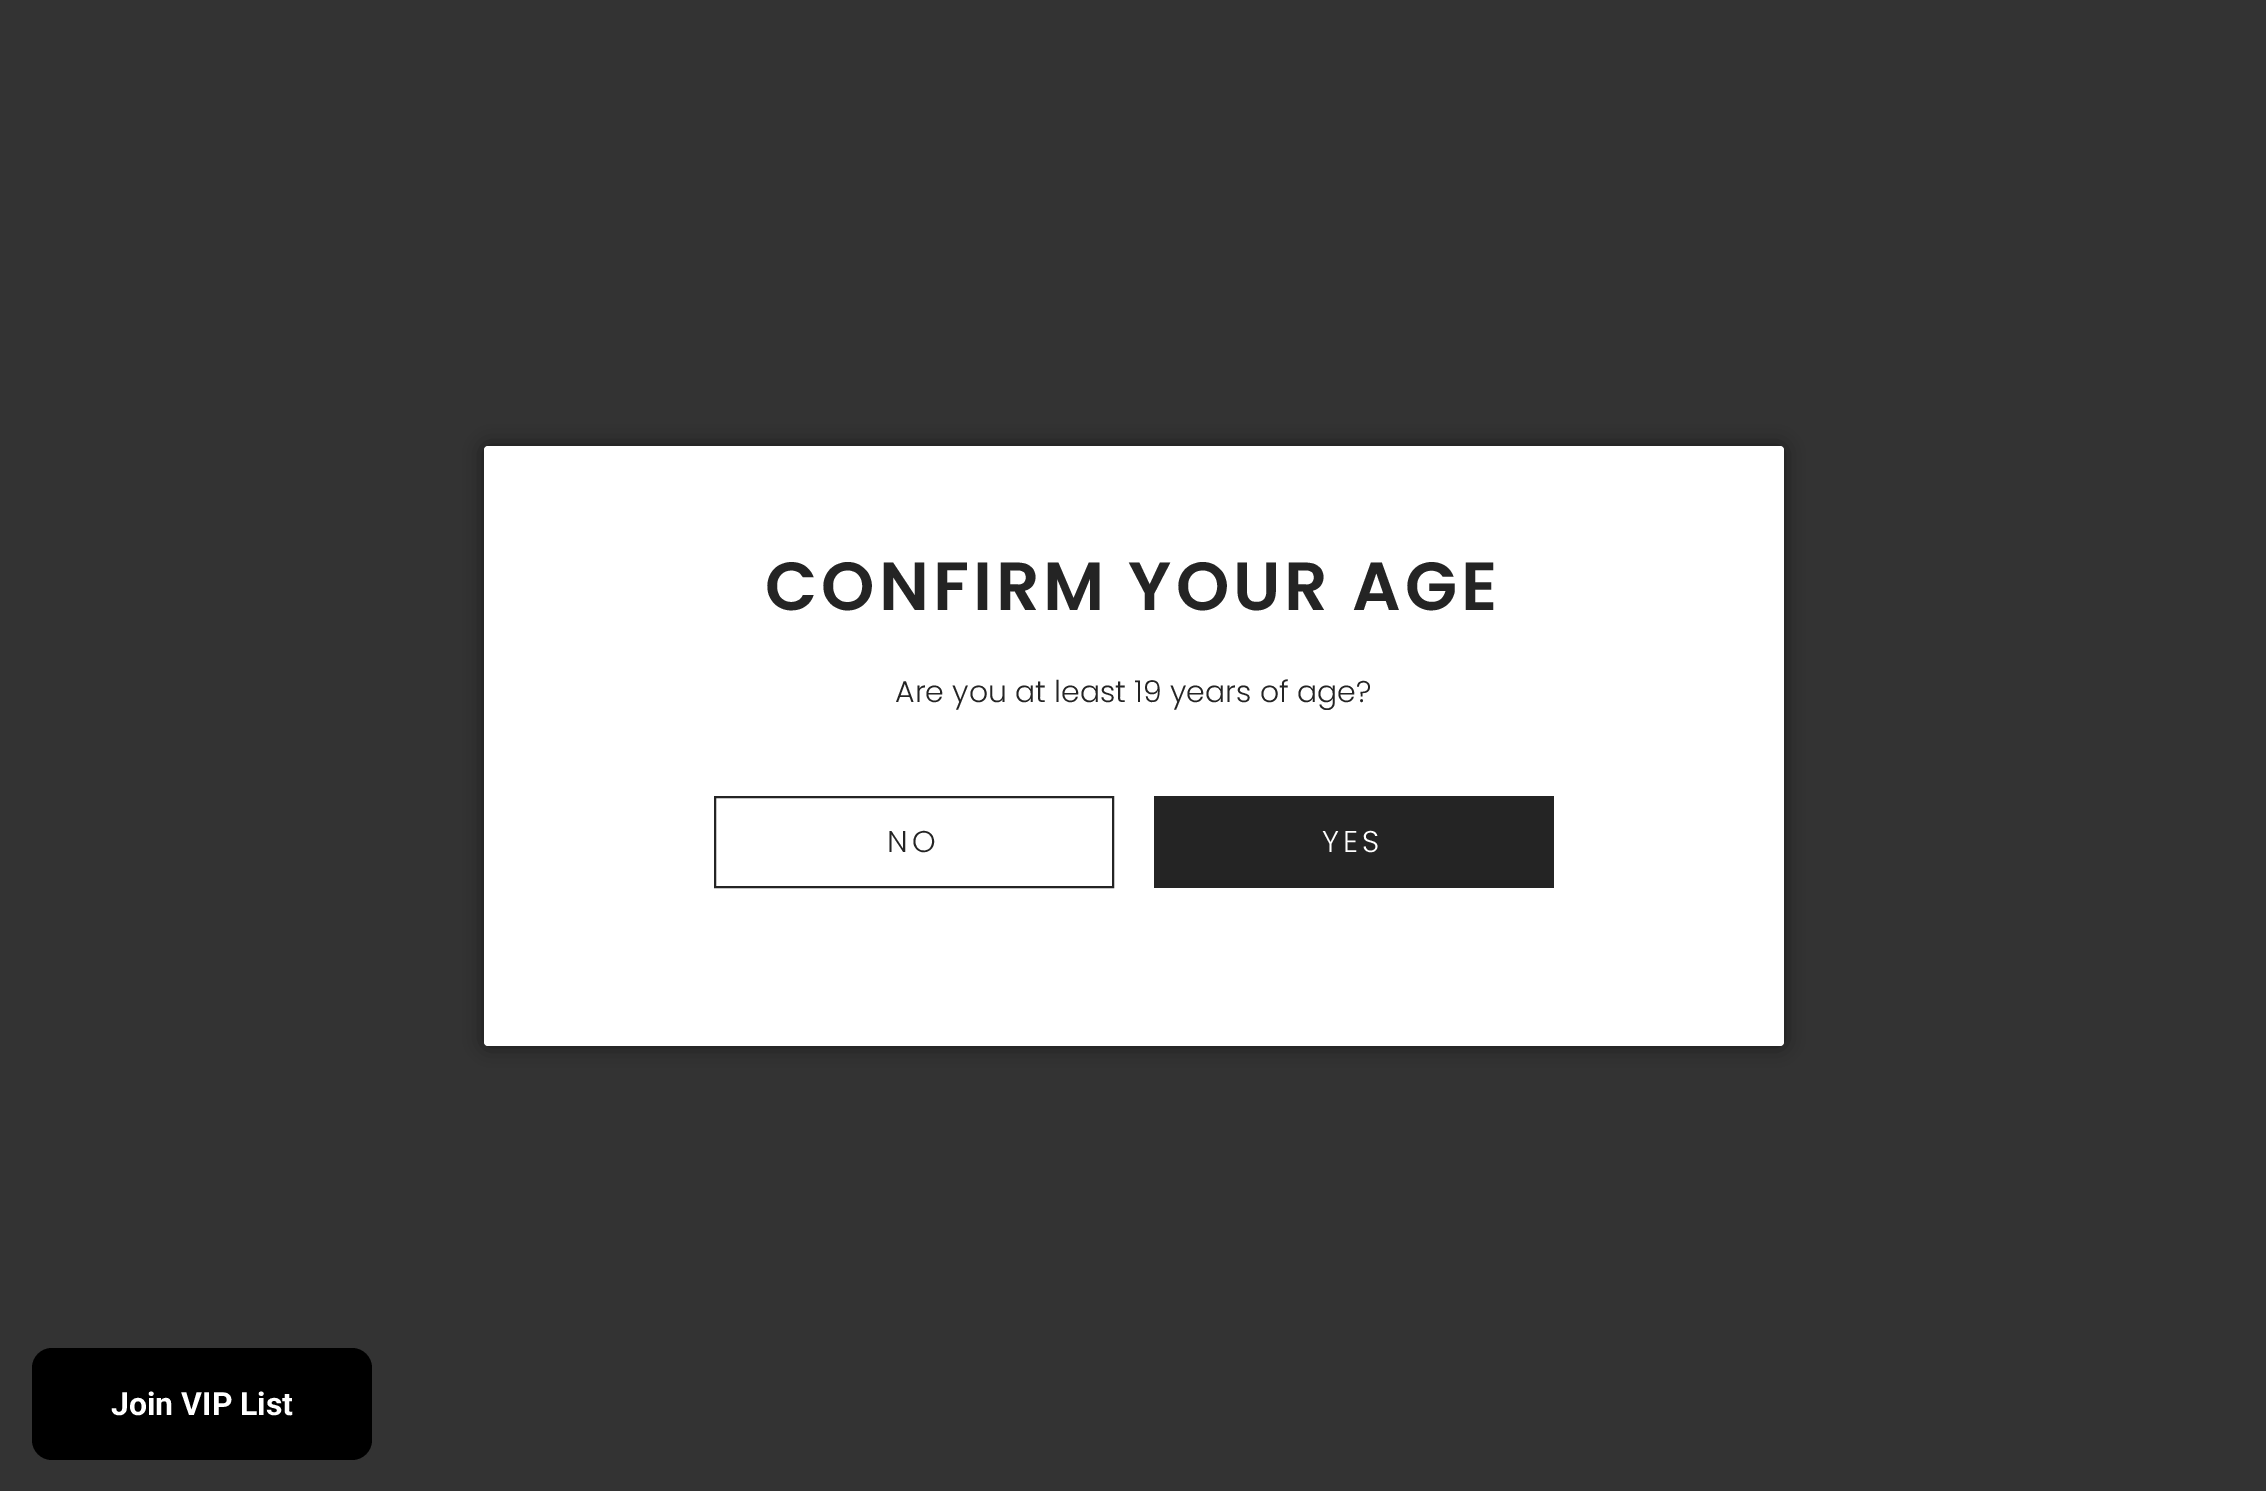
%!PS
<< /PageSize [2266 1491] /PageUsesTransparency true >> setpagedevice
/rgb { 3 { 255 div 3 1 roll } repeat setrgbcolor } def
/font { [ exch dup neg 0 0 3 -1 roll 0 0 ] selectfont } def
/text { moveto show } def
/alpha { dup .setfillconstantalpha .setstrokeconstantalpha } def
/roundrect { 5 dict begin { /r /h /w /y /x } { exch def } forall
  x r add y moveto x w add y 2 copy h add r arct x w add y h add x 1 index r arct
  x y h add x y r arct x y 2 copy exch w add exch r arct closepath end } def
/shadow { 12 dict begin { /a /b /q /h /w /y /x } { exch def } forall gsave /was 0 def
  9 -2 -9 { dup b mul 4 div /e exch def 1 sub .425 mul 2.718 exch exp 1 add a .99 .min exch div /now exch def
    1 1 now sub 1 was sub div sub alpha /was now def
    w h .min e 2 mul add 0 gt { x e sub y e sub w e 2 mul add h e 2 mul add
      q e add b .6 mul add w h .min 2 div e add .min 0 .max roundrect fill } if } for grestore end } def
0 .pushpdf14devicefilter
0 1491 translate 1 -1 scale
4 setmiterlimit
51 51 51 rgb
0 0 2266 1491 rectfill
0 0 0 rgb
484 446 1300 600 4 10 0.5 shadow
255 255 255 rgb
484 446 1300 600 4 roundrect fill
36 36 36 rgb
2 setlinewidth
715 797 398 90 rectstroke
1154 796 400 92 rectfill
0 0 0 rgb
32 1348 340 112 20 roundrect fill
/Poppins-SemiBold 68 font
36 36 36 rgb
765 610 moveto 4 0 (CONFIRM YOUR AGE) ashow
/Poppins-Light 30 font
(Are you at least 19 years of age?) 895 702 text
887 852 moveto 4 0 (NO) ashow
255 255 255 rgb
1322 852 moveto 4 0 (YES) ashow
/Roboto-Bold 32 font
(Join VIP List) 111 1415 text
.poppdf14devicefilter showpage
